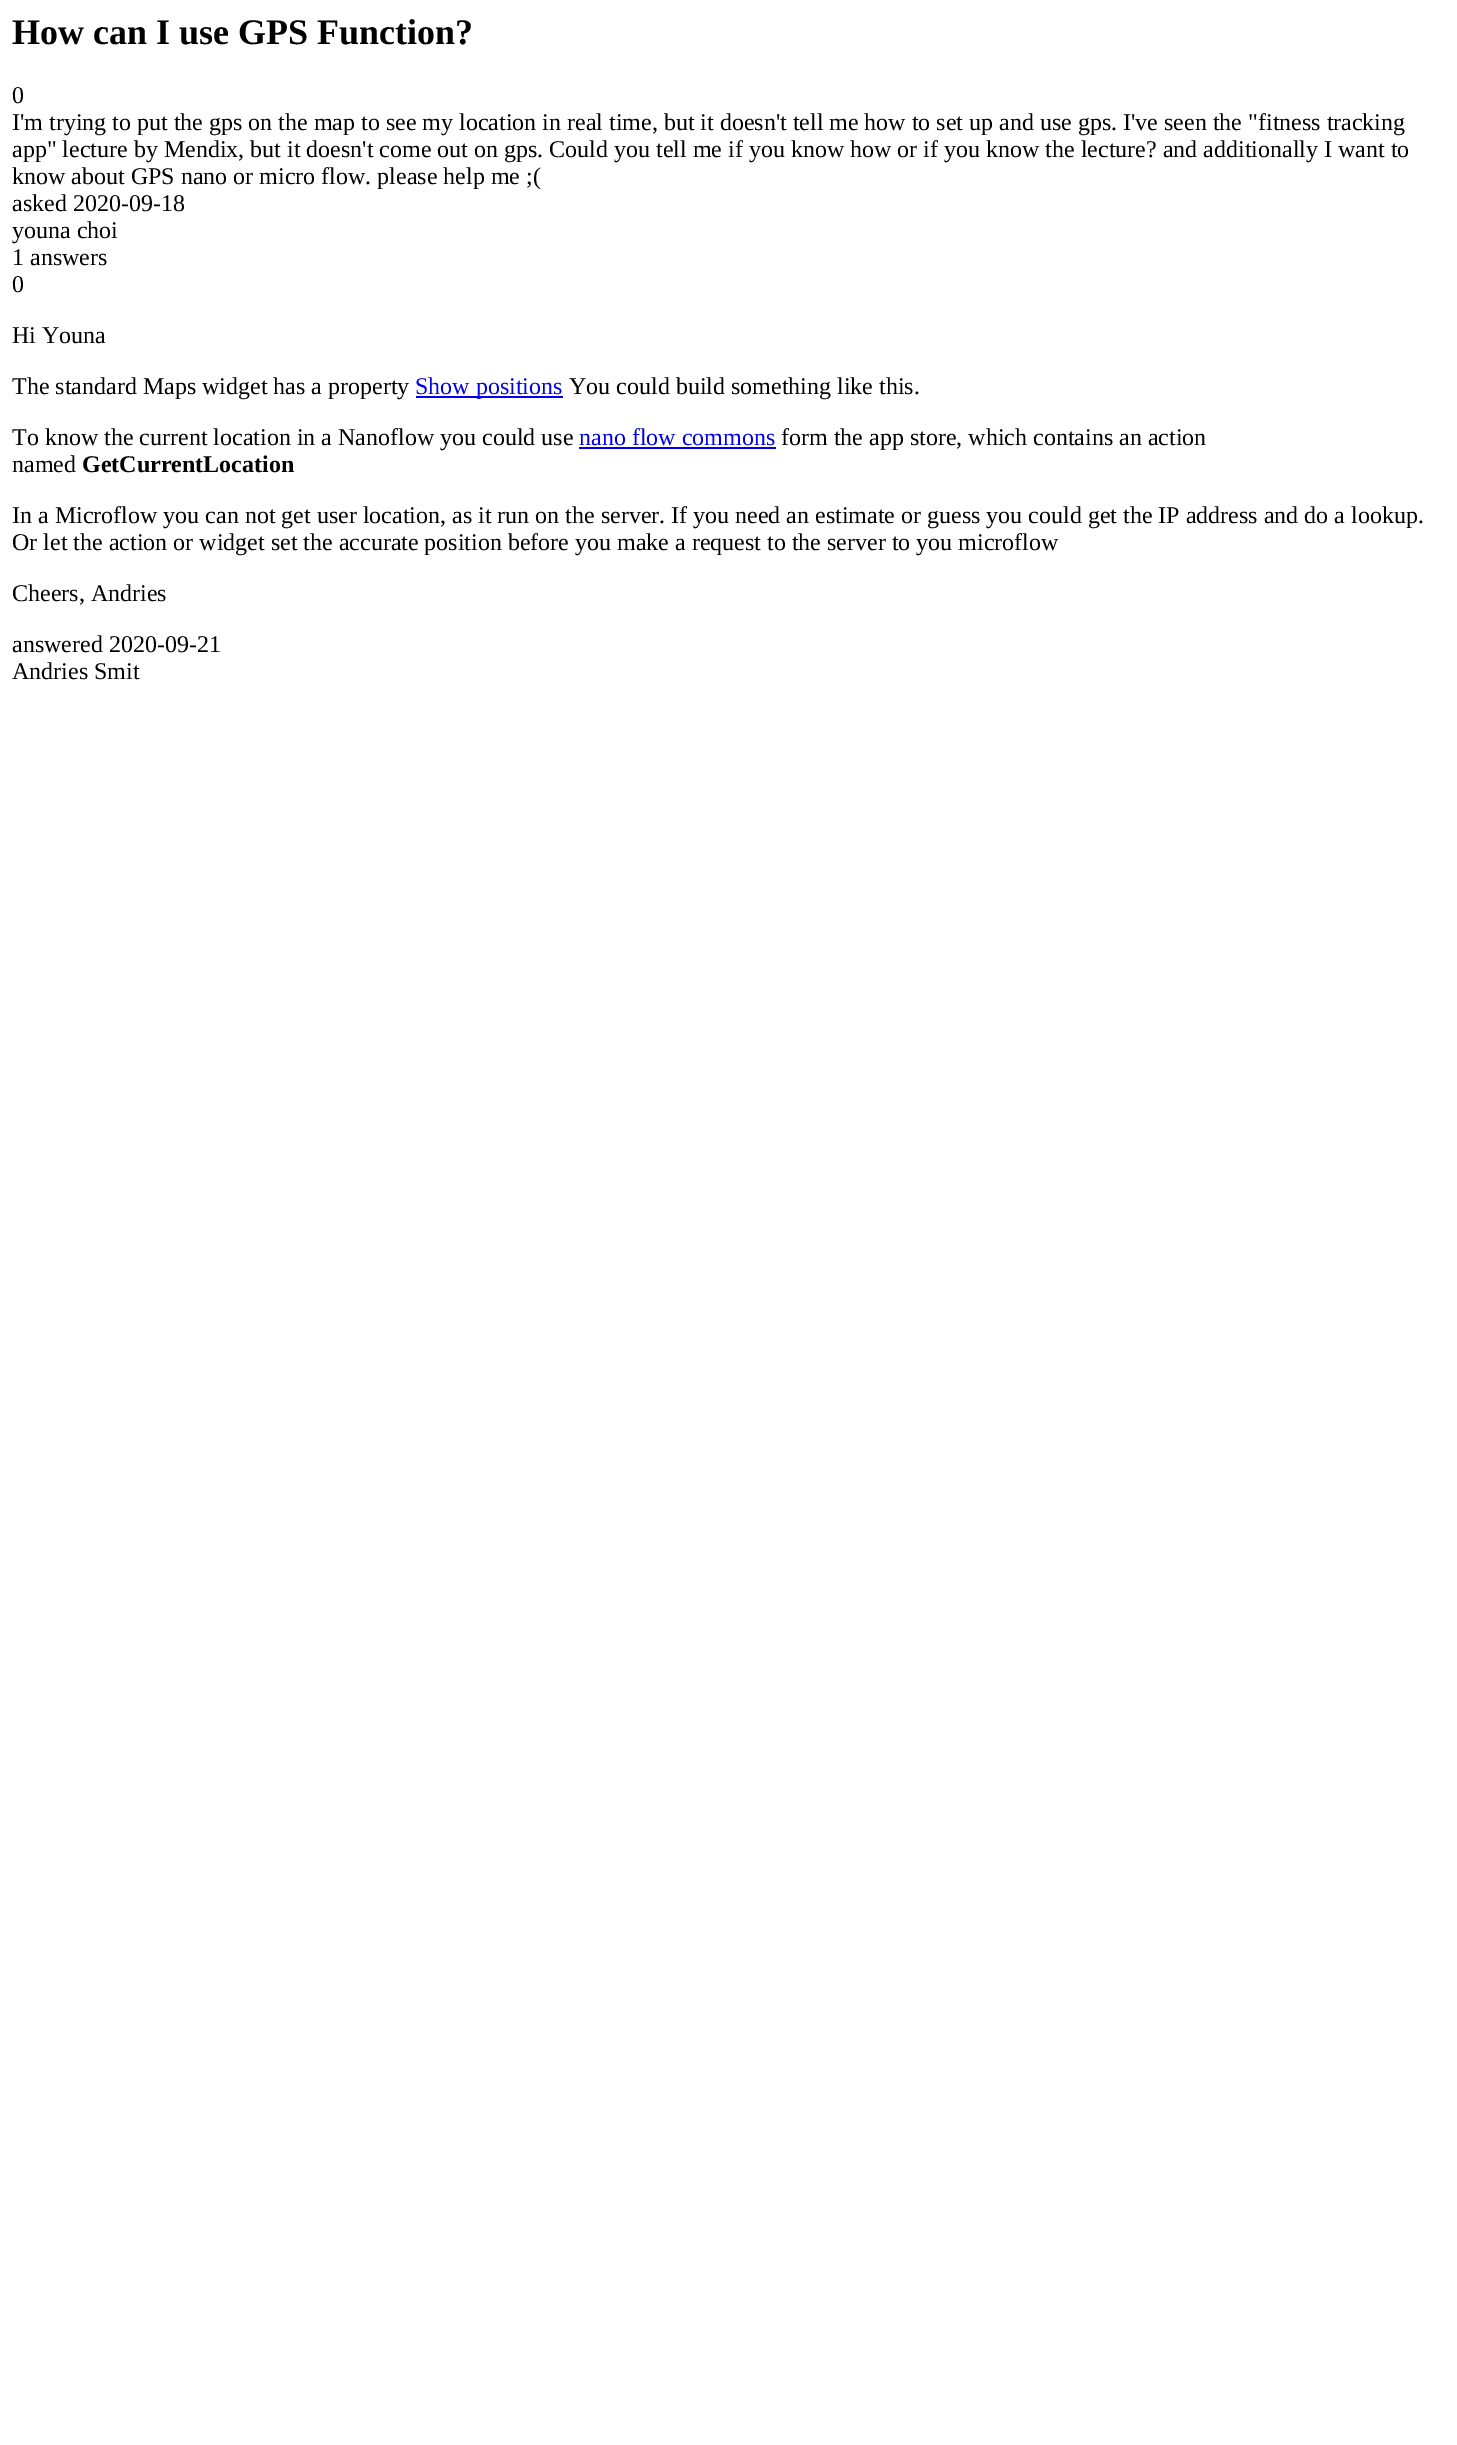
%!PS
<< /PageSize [1457 2445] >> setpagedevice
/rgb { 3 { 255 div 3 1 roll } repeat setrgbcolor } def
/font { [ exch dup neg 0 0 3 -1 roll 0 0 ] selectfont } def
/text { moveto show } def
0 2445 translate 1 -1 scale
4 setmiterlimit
255 255 255 rgb
0 0 1457 2445 rectfill
0 0 238 rgb
416 396 147 2 rectfill
579 447 197 2 rectfill
/LiberationSerif-Bold 36 font
0 0 0 rgb
(How can I use GPS Function?) 12 44 text
/LiberationSerif-Regular 24 font
(0) 12 103 text
(I'm trying to put the gps on the map to see my location in real time, but it doesn't tell me how to set up and use gps. I've seen the "fitness tracking) 12 130 text
(app" lecture by Mendix, but it doesn't come out on gps. Could you tell me if you know how or if you know the lecture? and additionally I want to) 12 157 text
(know about GPS nano or micro flow. please help me ;\() 12 184 text
(asked 2020-09-18) 12 211 text
(youna choi) 12 238 text
(1 answers) 12 265 text
(0) 12 292 text
(Hi Youna) 12 343 text
(The standard Maps widget has a property) 12 394 text
0 0 238 rgb
(Show positions) 415 394 text
0 0 0 rgb
(You could build something like this.) 569 394 text
(To know the current location in a Nanoflow you could use) 12 445 text
0 0 238 rgb
(nano flow commons) 579 445 text
0 0 0 rgb
(form the app store, which contains an action) 781 445 text
(named) 12 472 text
/LiberationSerif-Bold 24 font
(GetCurrentLocation) 82 472 text
/LiberationSerif-Regular 24 font
(In a Microflow you can not get user location, as it run on the server. If you need an estimate or guess you could get the IP address and do a lookup.) 12 523 text
(Or let the action or widget set the accurate position before you make a request to the server to you microflow) 12 550 text
(Cheers, Andries) 12 601 text
(answered 2020-09-21) 12 652 text
(Andries Smit) 12 679 text
showpage
